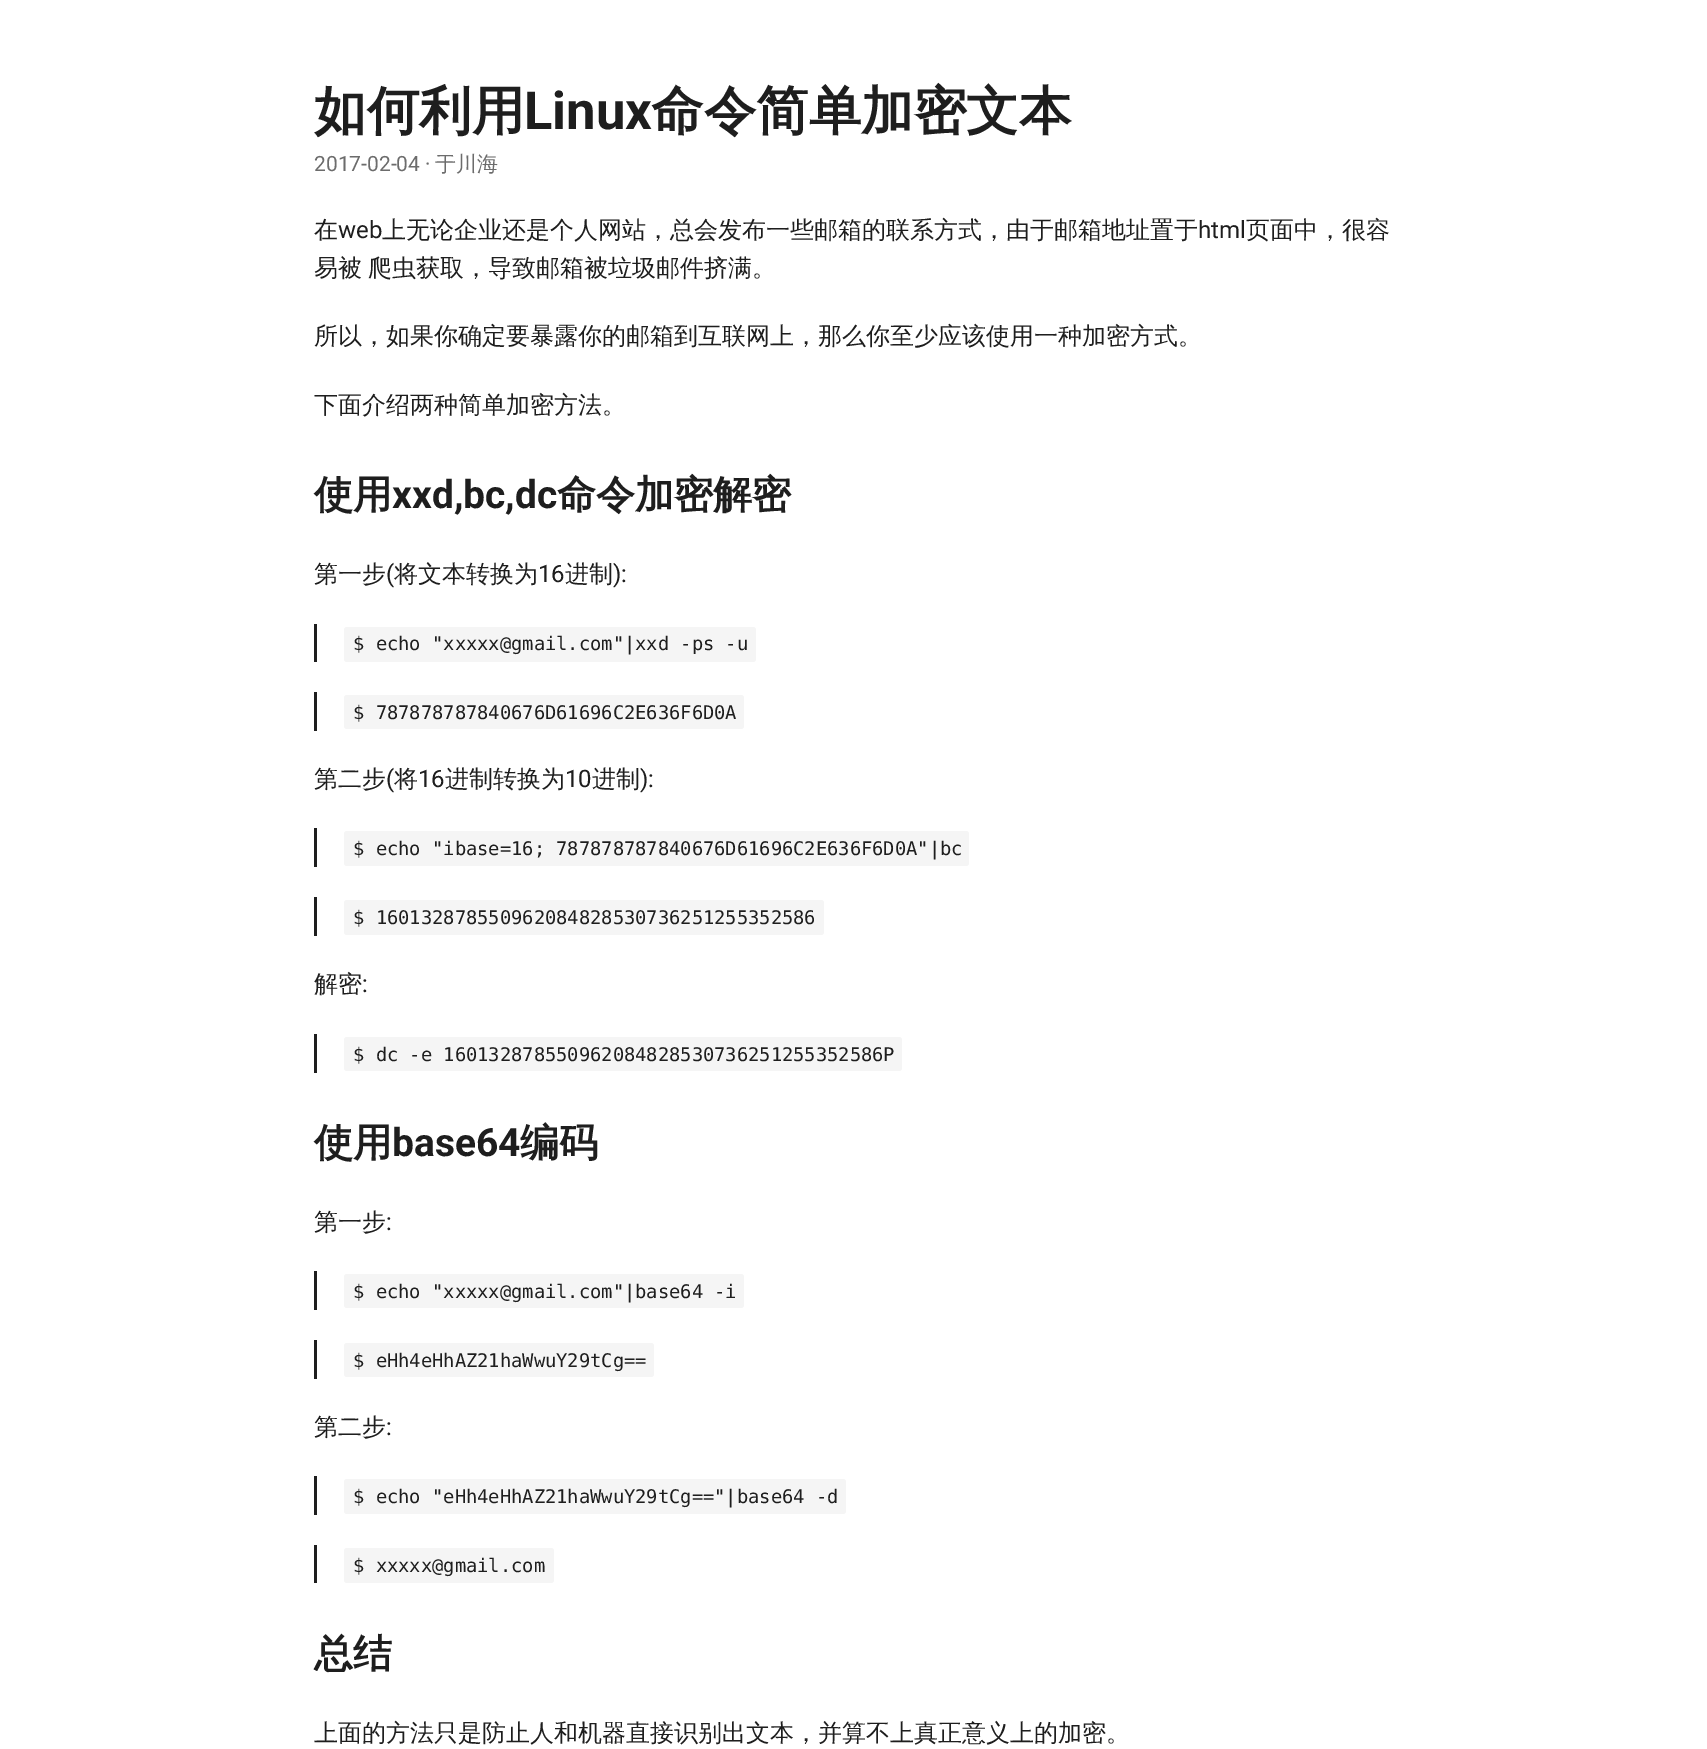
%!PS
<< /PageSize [1707 1749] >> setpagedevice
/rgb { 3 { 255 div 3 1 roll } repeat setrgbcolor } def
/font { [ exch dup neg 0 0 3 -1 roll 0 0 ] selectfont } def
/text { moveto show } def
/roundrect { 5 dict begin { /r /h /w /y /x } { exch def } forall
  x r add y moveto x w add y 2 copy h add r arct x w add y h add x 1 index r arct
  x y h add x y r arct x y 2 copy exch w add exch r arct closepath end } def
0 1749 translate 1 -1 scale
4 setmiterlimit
255 255 255 rgb
0 0 1707 1749 rectfill
30 30 30 rgb
314 624 3 38 rectfill
245 245 245 rgb
344 627 412 35 3 roundrect fill
30 30 30 rgb
314 692 3 39 rectfill
245 245 245 rgb
344 695 400 34 3 roundrect fill
30 30 30 rgb
314 828 3 39 rectfill
245 245 245 rgb
344 831 625 35 3 roundrect fill
30 30 30 rgb
314 897 3 39 rectfill
245 245 245 rgb
344 900 480 35 3 roundrect fill
30 30 30 rgb
314 1034 3 39 rectfill
245 245 245 rgb
344 1037 558 34 3 roundrect fill
30 30 30 rgb
314 1271 3 39 rectfill
245 245 245 rgb
344 1274 400 34 3 roundrect fill
30 30 30 rgb
314 1340 3 39 rectfill
245 245 245 rgb
344 1343 310 34 3 roundrect fill
30 30 30 rgb
314 1476 3 39 rectfill
245 245 245 rgb
344 1479 502 35 3 roundrect fill
30 30 30 rgb
314 1545 3 38 rectfill
245 245 245 rgb
344 1548 210 35 3 roundrect fill
/WenQuanYiZenHei-Bold 52.5 font
30 30 30 rgb
(如何利用) 314 129 text
/Roboto-Bold 52.5 font
(Linux) 524 129 text
/WenQuanYiZenHei-Bold 52.5 font
(命令简单加密文本) 651 129 text
/Roboto-Regular 21 font
108 108 108 rgb
(2017-02-04 ·) 314 171 text
/WenQuanYiZenHei-Medium 21 font
(于川海) 435 171 text
/WenQuanYiZenHei-Medium 24 font
30 30 30 rgb
(在) 314 238 text
/Roboto-Regular 24 font
(web) 338 238 text
/WenQuanYiZenHei-Medium 24 font
(上无论企业还是个人网站，总会发布一些邮箱的联系方式，由于邮箱地址置于) 382 238 text
/Roboto-Regular 24 font
(html) 1198 238 text
/WenQuanYiZenHei-Medium 24 font
(页面中，很容) 1246 238 text
314 276 moveto -1 0 32 (易被 爬虫获取，导致邮箱被垃圾邮件挤满。) widthshow
(所以，如果你确定要暴露你的邮箱到互联网上，那么你至少应该使用一种加密方式。) 314 344 text
(下面介绍两种简单加密方法。) 314 413 text
/WenQuanYiZenHei-Bold 39 font
(使用) 314 508 text
/Roboto-Bold 39 font
(xxd,bc,dc) 392 508 text
/WenQuanYiZenHei-Bold 39 font
(命令加密解密) 557 508 text
/WenQuanYiZenHei-Medium 24 font
(第一步) 314 582 text
/Roboto-Regular 24 font
(\() 386 582 text
/WenQuanYiZenHei-Medium 24 font
(将文本转换为) 394 582 text
/Roboto-Regular 24 font
(16) 538 582 text
/WenQuanYiZenHei-Medium 24 font
(进制) 565 582 text
/Roboto-Regular 24 font
(\):) 613 582 text
/DejaVuSansMono-Regular 18.75 font
($ echo "xxxxx@gmail.com"|xxd -ps -u) 353 650 text
($ 787878787840676D61696C2E636F6D0A) 353 719 text
/WenQuanYiZenHei-Medium 24 font
(第二步) 314 787 text
/Roboto-Regular 24 font
(\() 386 787 text
/WenQuanYiZenHei-Medium 24 font
(将) 394 787 text
/Roboto-Regular 24 font
(16) 418 787 text
/WenQuanYiZenHei-Medium 24 font
(进制转换为) 445 787 text
/Roboto-Regular 24 font
(10) 565 787 text
/WenQuanYiZenHei-Medium 24 font
(进制) 592 787 text
/Roboto-Regular 24 font
(\):) 640 787 text
/DejaVuSansMono-Regular 18.75 font
($ echo "ibase=16; 787878787840676D61696C2E636F6D0A"|bc) 353 855 text
($ 160132878550962084828530736251255352586) 353 924 text
/WenQuanYiZenHei-Medium 24 font
(解密) 314 992 text
/Roboto-Regular 24 font
(:) 362 992 text
/DejaVuSansMono-Regular 18.75 font
($ dc -e 160132878550962084828530736251255352586P) 353 1061 text
/WenQuanYiZenHei-Bold 39 font
(使用) 314 1156 text
/Roboto-Bold 39 font
(base64) 392 1156 text
/WenQuanYiZenHei-Bold 39 font
(编码) 520 1156 text
/WenQuanYiZenHei-Medium 24 font
(第一步) 314 1230 text
/Roboto-Regular 24 font
(:) 386 1230 text
/DejaVuSansMono-Regular 18.75 font
($ echo "xxxxx@gmail.com"|base64 -i) 353 1298 text
($ eHh4eHhAZ21haWwuY29tCg==) 353 1367 text
/WenQuanYiZenHei-Medium 24 font
(第二步) 314 1435 text
/Roboto-Regular 24 font
(:) 386 1435 text
/DejaVuSansMono-Regular 18.75 font
($ echo "eHh4eHhAZ21haWwuY29tCg=="|base64 -d) 353 1503 text
($ xxxxx@gmail.com) 353 1572 text
/WenQuanYiZenHei-Bold 39 font
(总结) 314 1667 text
/WenQuanYiZenHei-Medium 24 font
(上面的方法只是防止人和机器直接识别出文本，并算不上真正意义上的加密。) 314 1741 text
showpage
